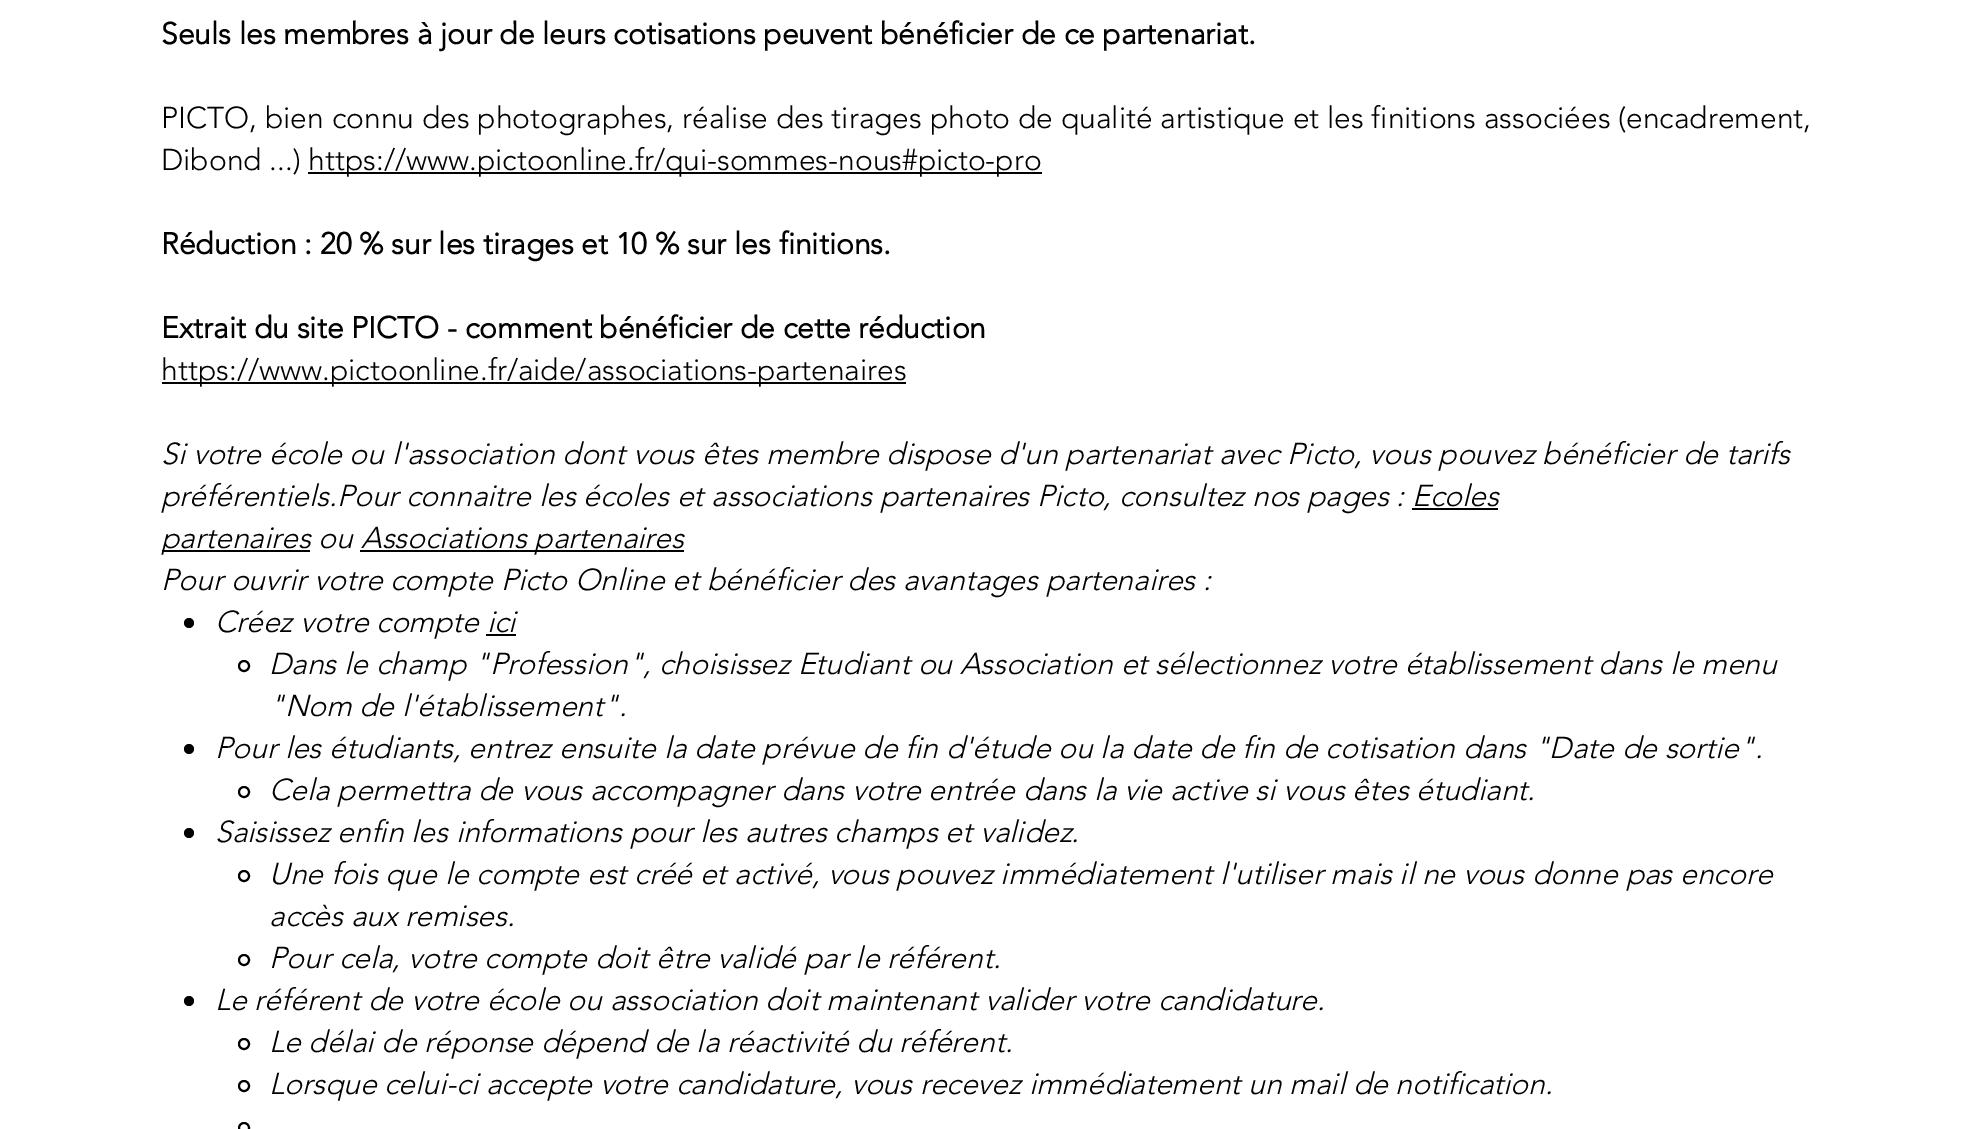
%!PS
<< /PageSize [1982 1129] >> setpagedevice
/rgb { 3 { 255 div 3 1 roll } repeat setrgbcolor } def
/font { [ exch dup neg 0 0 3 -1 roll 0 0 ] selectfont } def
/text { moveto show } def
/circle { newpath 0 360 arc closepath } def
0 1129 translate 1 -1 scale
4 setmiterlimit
255 255 255 rgb
0 0 1982 1129 rectfill
0 0 0 rgb
308 172 734 2 rectfill
162 382 744 2 rectfill
1412 508 86 2 rectfill
162 550 148 2 rectfill
360 550 324 2 rectfill
189 623 5 circle fill
486 634 30 2 rectfill
2 setlinewidth
244 666 5 circle stroke
189 749 5 circle fill
244 792 5 circle stroke
189 833 5 circle fill
244 876 5 circle stroke
244 960 5 circle stroke
189 1001 5 circle fill
244 1044 5 circle stroke
244 1086 5 circle stroke
244 1128 5 circle stroke
/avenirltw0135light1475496-Bold 30 font
(Seuls les membres à jour de leurs cotisations peuvent bénéficier de ce partenariat.) 161 44 text
/avenirltw0135light1475496-Light 30 font
(PICTO, bien connu des photographes, réalise des tirages photo de qualité artistique et les finitions associées \(encadrement,) 161 128 text
(Dibond ...\)) 161 170 text
(https://www.pictoonline.fr/qui-sommes-nous#picto-pro) 308 170 text
/avenirltw0135light1475496-Bold 30 font
(Réduction : 20 % sur les tirages et 10 % sur les finitions.) 161 254 text
(Extrait du site PICTO - comment bénéficier de cette réduction) 161 338 text
/avenirltw0135light1475496-Light 30 font
(https://www.pictoonline.fr/aide/associations-partenaires) 161 380 text
/avenirltw0135light1475496-LightItalic 30 font
(Si votre école ou l'association dont vous êtes membre dispose d'un partenariat avec Picto, vous pouvez bénéficier de tarifs) 161 464 text
(préférentiels.Pour connaitre les écoles et associations partenaires Picto, consultez nos pages : Ecoles) 161 506 text
(partenaires ou) 161 548 text
(Associations partenaires) 361 548 text
(Pour ouvrir votre compte Picto Online et bénéficier des avantages partenaires :) 161 590 text
(Créez votre compte ici) 215 632 text
(Dans le champ "Profession", choisissez Etudiant ou Association et sélectionnez votre établissement dans le menu) 269 674 text
("Nom de l'établissement".) 269 716 text
(Pour les étudiants, entrez ensuite la date prévue de fin d'étude ou la date de fin de cotisation dans "Date de sortie".) 215 758 text
(Cela permettra de vous accompagner dans votre entrée dans la vie active si vous êtes étudiant.) 269 800 text
(Saisissez enfin les informations pour les autres champs et validez.) 215 842 text
(Une fois que le compte est créé et activé, vous pouvez immédiatement l'utiliser mais il ne vous donne pas encore) 269 884 text
(accès aux remises.) 269 926 text
(Pour cela, votre compte doit être validé par le référent.) 269 968 text
(Le référent de votre école ou association doit maintenant valider votre candidature.) 215 1010 text
(Le délai de réponse dépend de la réactivité du référent.) 269 1052 text
(Lorsque celui-ci accepte votre candidature, vous recevez immédiatement un mail de notification.) 269 1094 text
showpage
